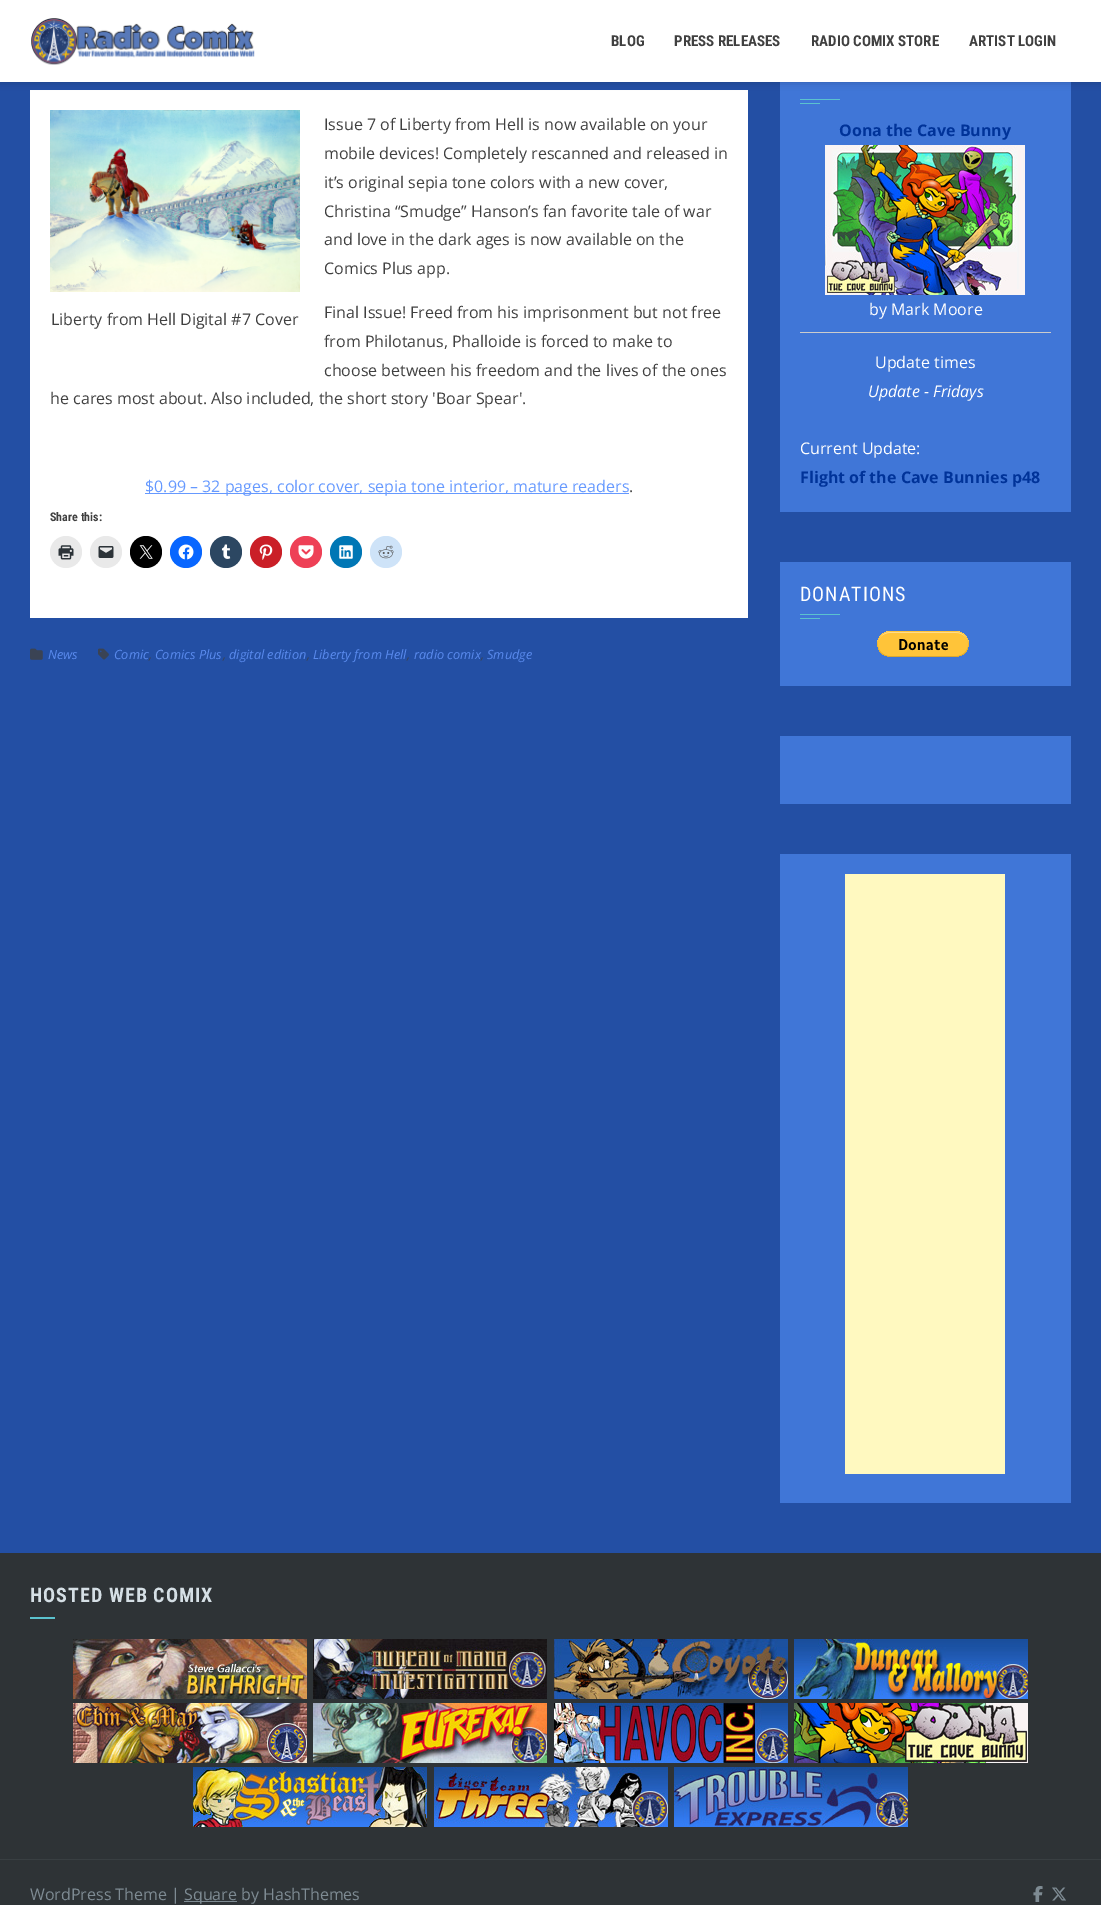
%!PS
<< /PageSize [1101 1905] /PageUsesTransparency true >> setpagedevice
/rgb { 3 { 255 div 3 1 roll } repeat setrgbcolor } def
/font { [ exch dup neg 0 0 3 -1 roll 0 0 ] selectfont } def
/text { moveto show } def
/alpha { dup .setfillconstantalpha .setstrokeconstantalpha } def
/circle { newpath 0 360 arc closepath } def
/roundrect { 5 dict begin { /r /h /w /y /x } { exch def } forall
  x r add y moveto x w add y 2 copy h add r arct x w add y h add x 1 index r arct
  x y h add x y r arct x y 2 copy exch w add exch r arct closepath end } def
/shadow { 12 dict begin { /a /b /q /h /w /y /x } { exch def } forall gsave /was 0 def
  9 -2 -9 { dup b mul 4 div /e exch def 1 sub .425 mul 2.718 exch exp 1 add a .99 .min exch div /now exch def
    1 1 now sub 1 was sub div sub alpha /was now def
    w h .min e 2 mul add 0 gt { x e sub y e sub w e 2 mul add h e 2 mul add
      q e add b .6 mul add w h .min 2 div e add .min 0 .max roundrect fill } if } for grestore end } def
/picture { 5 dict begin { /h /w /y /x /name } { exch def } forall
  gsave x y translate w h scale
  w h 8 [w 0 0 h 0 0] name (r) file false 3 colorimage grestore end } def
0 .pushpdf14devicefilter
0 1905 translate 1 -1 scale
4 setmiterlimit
35 79 164 rgb
0 0 1101 1905 rectfill
255 255 255 rgb
30 90 718 528 rectfill
64 118 215 rgb
780 82 291 430 rectfill
0 0 0 rgb
0 0 1101 82 0 4 0.2 shadow
255 255 255 rgb
0 0 1101 82 rectfill
(img_01.rgb) 31 18 224 47 picture
102 153 255 rgb
145 493 484 1 rectfill
(img_02.rgb) 50 110 250 182 picture
233 233 233 rgb
66 552 16 circle fill
(img_03.rgb) 58 545 16 15 picture
106 552 16 circle fill
(img_04.rgb) 98 546 16 12 picture
0 0 0 rgb
146 552 16 circle fill
(img_05.rgb) 139 545 14 14 picture
8 102 255 rgb
186 552 16 circle fill
(img_06.rgb) 178 544 16 16 picture
44 71 98 rgb
226 552 16 circle fill
(img_07.rgb) 221 544 10 15 picture
202 31 39 rgb
266 552 16 circle fill
(img_08.rgb) 259 544 14 16 picture
238 64 86 rgb
306 552 16 circle fill
(img_09.rgb) 298 545 16 14 picture
0 119 181 rgb
346 552 16 circle fill
(img_10.rgb) 339 545 14 14 picture
206 227 248 rgb
386 552 16 circle fill
(img_11.rgb) 378 545 16 14 picture
(img_12.rgb) 30 648 13 12 picture
(img_13.rgb) 98 648 11 12 picture
91 194 206 rgb
800 99 40 1 rectfill
800 103 20 1 rectfill
(img_14.rgb) 825 145 200 150 picture
204 204 204 rgb
800 332 251 1 rectfill
64 118 215 rgb
780 562 291 124 rectfill
91 194 206 rgb
800 614 40 1 rectfill
800 618 20 1 rectfill
(img_15.rgb) 877 631 92 26 picture
64 118 215 rgb
780 736 291 68 rectfill
780 854 291 649 rectfill
255 249 192 rgb
845 874 160 600 rectfill
46 51 54 rgb
0 1553 1101 352 rectfill
57 63 66 rgb
0 1859 1101 1 rectfill
91 194 206 rgb
30 1617 25 2 rectfill
(img_16.rgb) 73 1639 234 60 picture
(img_17.rgb) 313 1639 234 60 picture
(img_18.rgb) 554 1639 234 60 picture
(img_19.rgb) 794 1639 234 60 picture
(img_20.rgb) 73 1703 234 60 picture
(img_21.rgb) 313 1703 234 60 picture
(img_22.rgb) 554 1703 234 60 picture
(img_23.rgb) 794 1703 234 60 picture
(img_24.rgb) 193 1767 234 60 picture
(img_25.rgb) 434 1767 234 60 picture
(img_26.rgb) 674 1767 234 60 picture
126 139 147 rgb
184 1901 53 1 rectfill
(img_27.rgb) 1033 1886 10 16 picture
(img_28.rgb) 1052 1887 14 14 picture
/RobotoCondensed-Bold 15 font
64 64 64 rgb
(BLOG) 611 46 text
(PRESS RELEASES) 674 46 text
(RADIO COMIX STORE) 811 46 text
(ARTIST LOGIN) 969 46 text
/OpenSans-Regular 16 font
(Issue 7 of Liberty from Hell is now available on your) 324 130 text
(mobile devices! Completely rescanned and released in) 324 159 text
(it’s original sepia tone colors with a new cover,) 324 188 text
(Christina “Smudge” Hanson’s fan favorite tale of war) 324 217 text
(and love in the dark ages is now available on the) 324 245 text
(Comics Plus app.) 324 274 text
(Final Issue! Freed from his imprisonment but not free) 324 318 text
(from Philotanus, Phalloide is forced to make to) 324 347 text
(choose between his freedom and the lives of the ones) 324 376 text
(he cares most about. Also included, the short story 'Boar Spear'.) 50 404 text
102 153 255 rgb
($0.99 – 32 pages, color cover, sepia tone interior, mature readers) 145 492 text
64 64 64 rgb
(.) 629 492 text
(Liberty from Hell Digital #7 Cover) 51 325 text
/RobotoCondensed-Bold 12 font
(Share this:) 50 521 text
/OpenSans-Italic 12.75 font
89 138 237 rgb
(News) 48 659 text
(Comic) 114 659 text
(Comics Plus) 155 659 text
(digital edition) 229 659 text
(Liberty from Hell) 313 659 text
(radio comix) 414 659 text
(Smudge) 487 659 text
58 67 84 rgb
(,) 149 659 text
(,) 223 659 text
(,) 307 659 text
(,) 407 659 text
(,) 481 659 text
/OpenSans-Bold 16 font
0 51 153 rgb
(Oona the Cave Bunny) 839 136 text
/OpenSans-Regular 16 font
255 255 255 rgb
(by Mark Moore) 869 315 text
(Update times) 875 368 text
/OpenSans-Italic 16 font
(Update - Fridays) 868 397 text
/OpenSans-Regular 16 font
(Current Update:) 800 454 text
/OpenSans-Bold 16 font
0 51 153 rgb
(Flight of the Cave Bunnies p48) 800 483 text
/RobotoCondensed-Regular 20 font
255 255 255 rgb
800 601 moveto 1 0 (DONATIONS) ashow
/RobotoCondensed-Bold 20 font
213 223 229 rgb
30 1602 moveto 1 0 (HOSTED WEB COMIX) ashow
/OpenSans-Regular 16 font
126 139 147 rgb
(WordPress Theme |) 30 1900 text
(Square by HashThemes) 184 1900 text
.poppdf14devicefilter showpage
